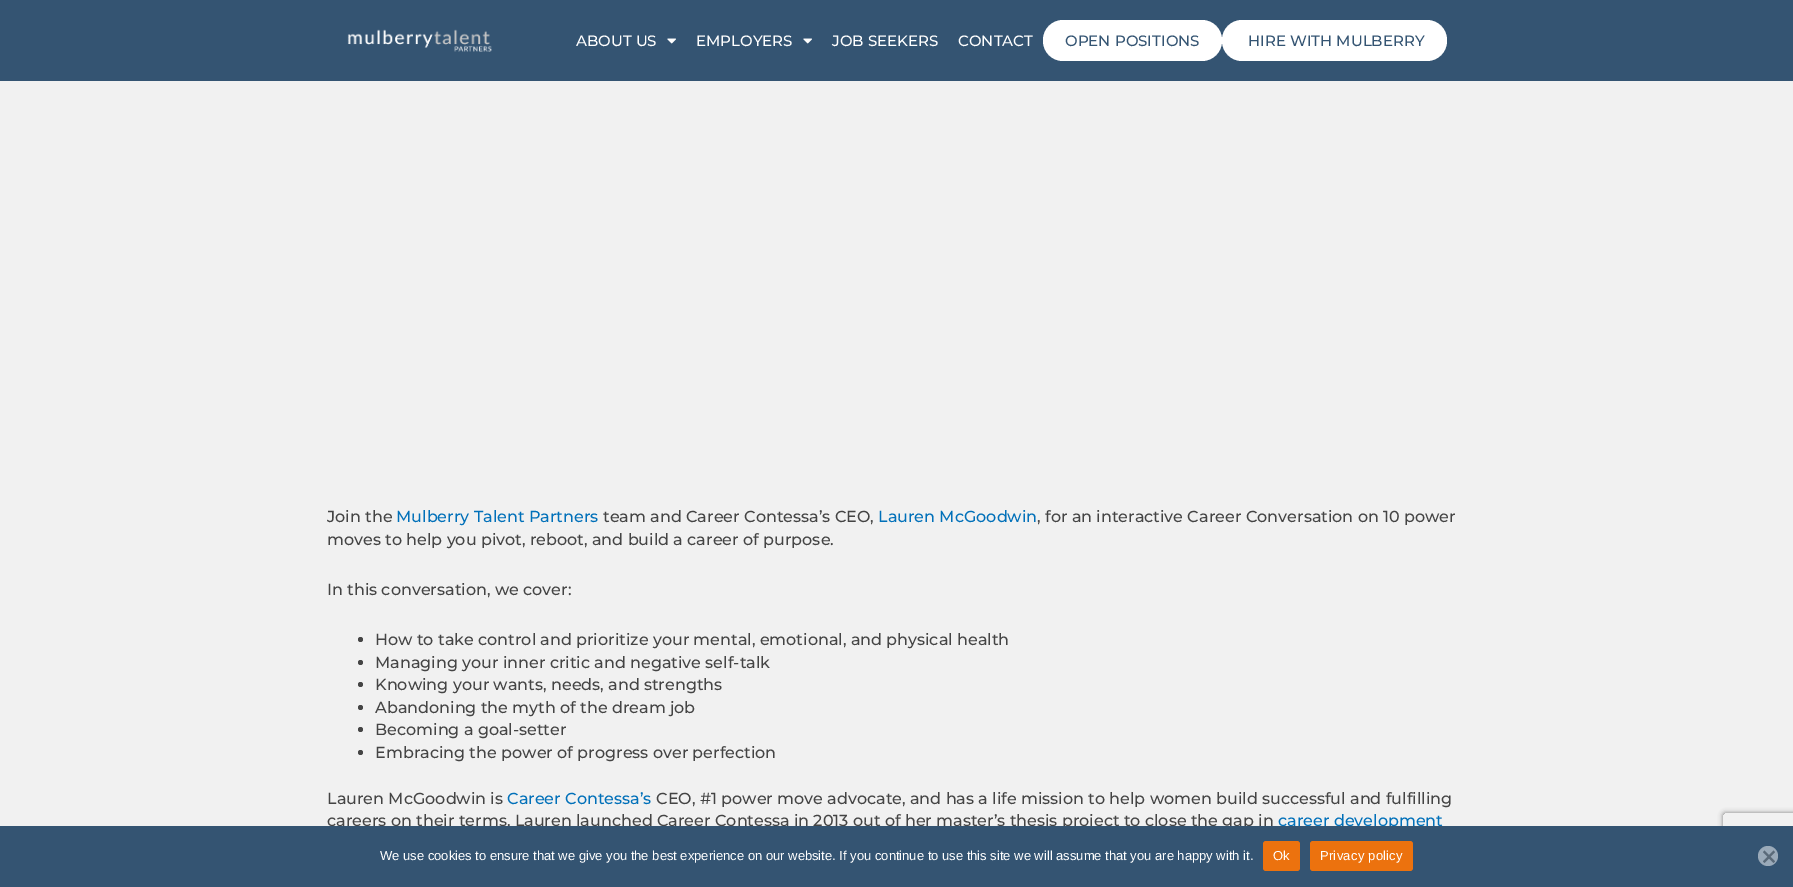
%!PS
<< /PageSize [1793 887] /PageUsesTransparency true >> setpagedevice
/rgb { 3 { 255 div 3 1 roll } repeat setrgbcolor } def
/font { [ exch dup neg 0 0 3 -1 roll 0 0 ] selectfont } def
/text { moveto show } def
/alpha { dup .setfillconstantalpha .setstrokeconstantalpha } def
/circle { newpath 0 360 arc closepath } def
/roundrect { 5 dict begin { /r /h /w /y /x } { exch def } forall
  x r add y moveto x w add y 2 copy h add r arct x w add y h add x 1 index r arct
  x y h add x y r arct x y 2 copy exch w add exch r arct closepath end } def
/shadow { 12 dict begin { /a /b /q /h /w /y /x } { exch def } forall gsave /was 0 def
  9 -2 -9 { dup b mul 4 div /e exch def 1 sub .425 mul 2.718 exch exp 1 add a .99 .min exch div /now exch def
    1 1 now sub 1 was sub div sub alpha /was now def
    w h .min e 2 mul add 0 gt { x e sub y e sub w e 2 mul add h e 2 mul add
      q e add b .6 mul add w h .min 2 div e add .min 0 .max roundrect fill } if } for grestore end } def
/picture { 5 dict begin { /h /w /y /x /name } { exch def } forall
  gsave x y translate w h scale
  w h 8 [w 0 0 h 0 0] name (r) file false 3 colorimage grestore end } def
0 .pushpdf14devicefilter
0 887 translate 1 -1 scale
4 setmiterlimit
241 241 241 rgb
0 0 1793 887 rectfill
52 84 114 rgb
0 0 1793 81 rectfill
(img_01.rgb) 347 29 145 23 picture
(img_02.rgb) 667 38 9 6 picture
(img_02.rgb) 803 38 9 6 picture
255 255 255 rgb
1043 20 179 41 20 roundrect fill
1222 20 225 41 20 roundrect fill
68 68 68 rgb
360.5 639.5 2.5 circle fill
360.5 662.5 2.5 circle fill
360.5 684.5 2.5 circle fill
360.5 707.5 2.5 circle fill
360.5 729.5 2.5 circle fill
360.5 752.5 2.5 circle fill
gsave
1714 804 moveto 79 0 rlineto 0 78 rlineto -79 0 rlineto closepath 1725 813 moveto 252 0 rlineto 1 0 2 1 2 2 rcurveto 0 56 rlineto 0 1 -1 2 -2 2 rcurveto -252 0 rlineto -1 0 -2 -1 -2 -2 rcurveto 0 -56 rlineto 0 -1 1 -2 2 -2 rcurveto closepath eoclip newpath
128 128 128 rgb
1723 813 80 60 2 2.5 1 shadow
grestore
/Montserrat-Medium 15 font
255 255 255 rgb
(ABOUT US) 576 46 text
(EMPLOYERS) 696 46 text
(JOB SEEKERS) 832 46 text
(CONTACT) 958 46 text
52 84 114 rgb
(OPEN POSITIONS) 1065 46 text
(HIRE WITH MULBERRY) 1248 46 text
/Montserrat-Medium 16 font
68 68 68 rgb
(Join the) 327 522 text
1 112 185 rgb
(Mulberry Talent Partners) 396 522 text
68 68 68 rgb
(team and Career Contessa’s CEO,) 603 522 text
1 112 185 rgb
(Lauren McGoodwin) 878 522 text
68 68 68 rgb
(, for an interactive Career Conversation on 10 power) 1037 522 text
(moves to help you pivot, reboot, and build a career of purpose.) 327 545 text
(In this conversation, we cover:) 327 595 text
(How to take control and prioritize your mental, emotional, and physical health) 375 645 text
(Managing your inner critic and negative self-talk) 375 668 text
(Knowing your wants, needs, and strengths) 375 690 text
(Abandoning the myth of the dream job) 375 713 text
(Becoming a goal-setter) 375 735 text
(Embracing the power of progress over perfection) 375 758 text
(Lauren McGoodwin is) 327 804 text
1 112 185 rgb
(Career Contessa’s) 507 804 text
68 68 68 rgb
(CEO, #1 power move advocate, and has a life mission to help women build successful and fulfilling) 656 804 text
(careers on their terms. Lauren launched Career Contessa in 2013 out of her master’s thesis project to close the gap in) 327 826 text
1 112 185 rgb
(career development) 1278 826 text
52 84 114 rgb
0 826 1793 61 rectfill
/LiberationSans-Regular 13 font
255 255 255 rgb
(We use cookies to ensure that we give you the best experience on our website. If you continue to use this site we will assume that you are happy with it.) 380 860 text
236 114 14 rgb
1263 841 37 30 3 roundrect fill
255 255 255 rgb
1273 860 moveto 0.25 0 (Ok) ashow
236 114 14 rgb
1310 841 103 30 3 roundrect fill
255 255 255 rgb
1320 860 moveto 0.25 0 (Privacy policy) ashow
154 170 185 rgb
1768 856 10 circle fill
90 106 121 rgb
1773.5 850.5 moveto 1.5 1.5 rlineto -10.5 11 rlineto -1.5 -1.5 rlineto closepath fill
1763 852 moveto 1.5 -1.5 rlineto 10.5 11 rlineto -1.5 1.5 rlineto closepath fill
.poppdf14devicefilter showpage
